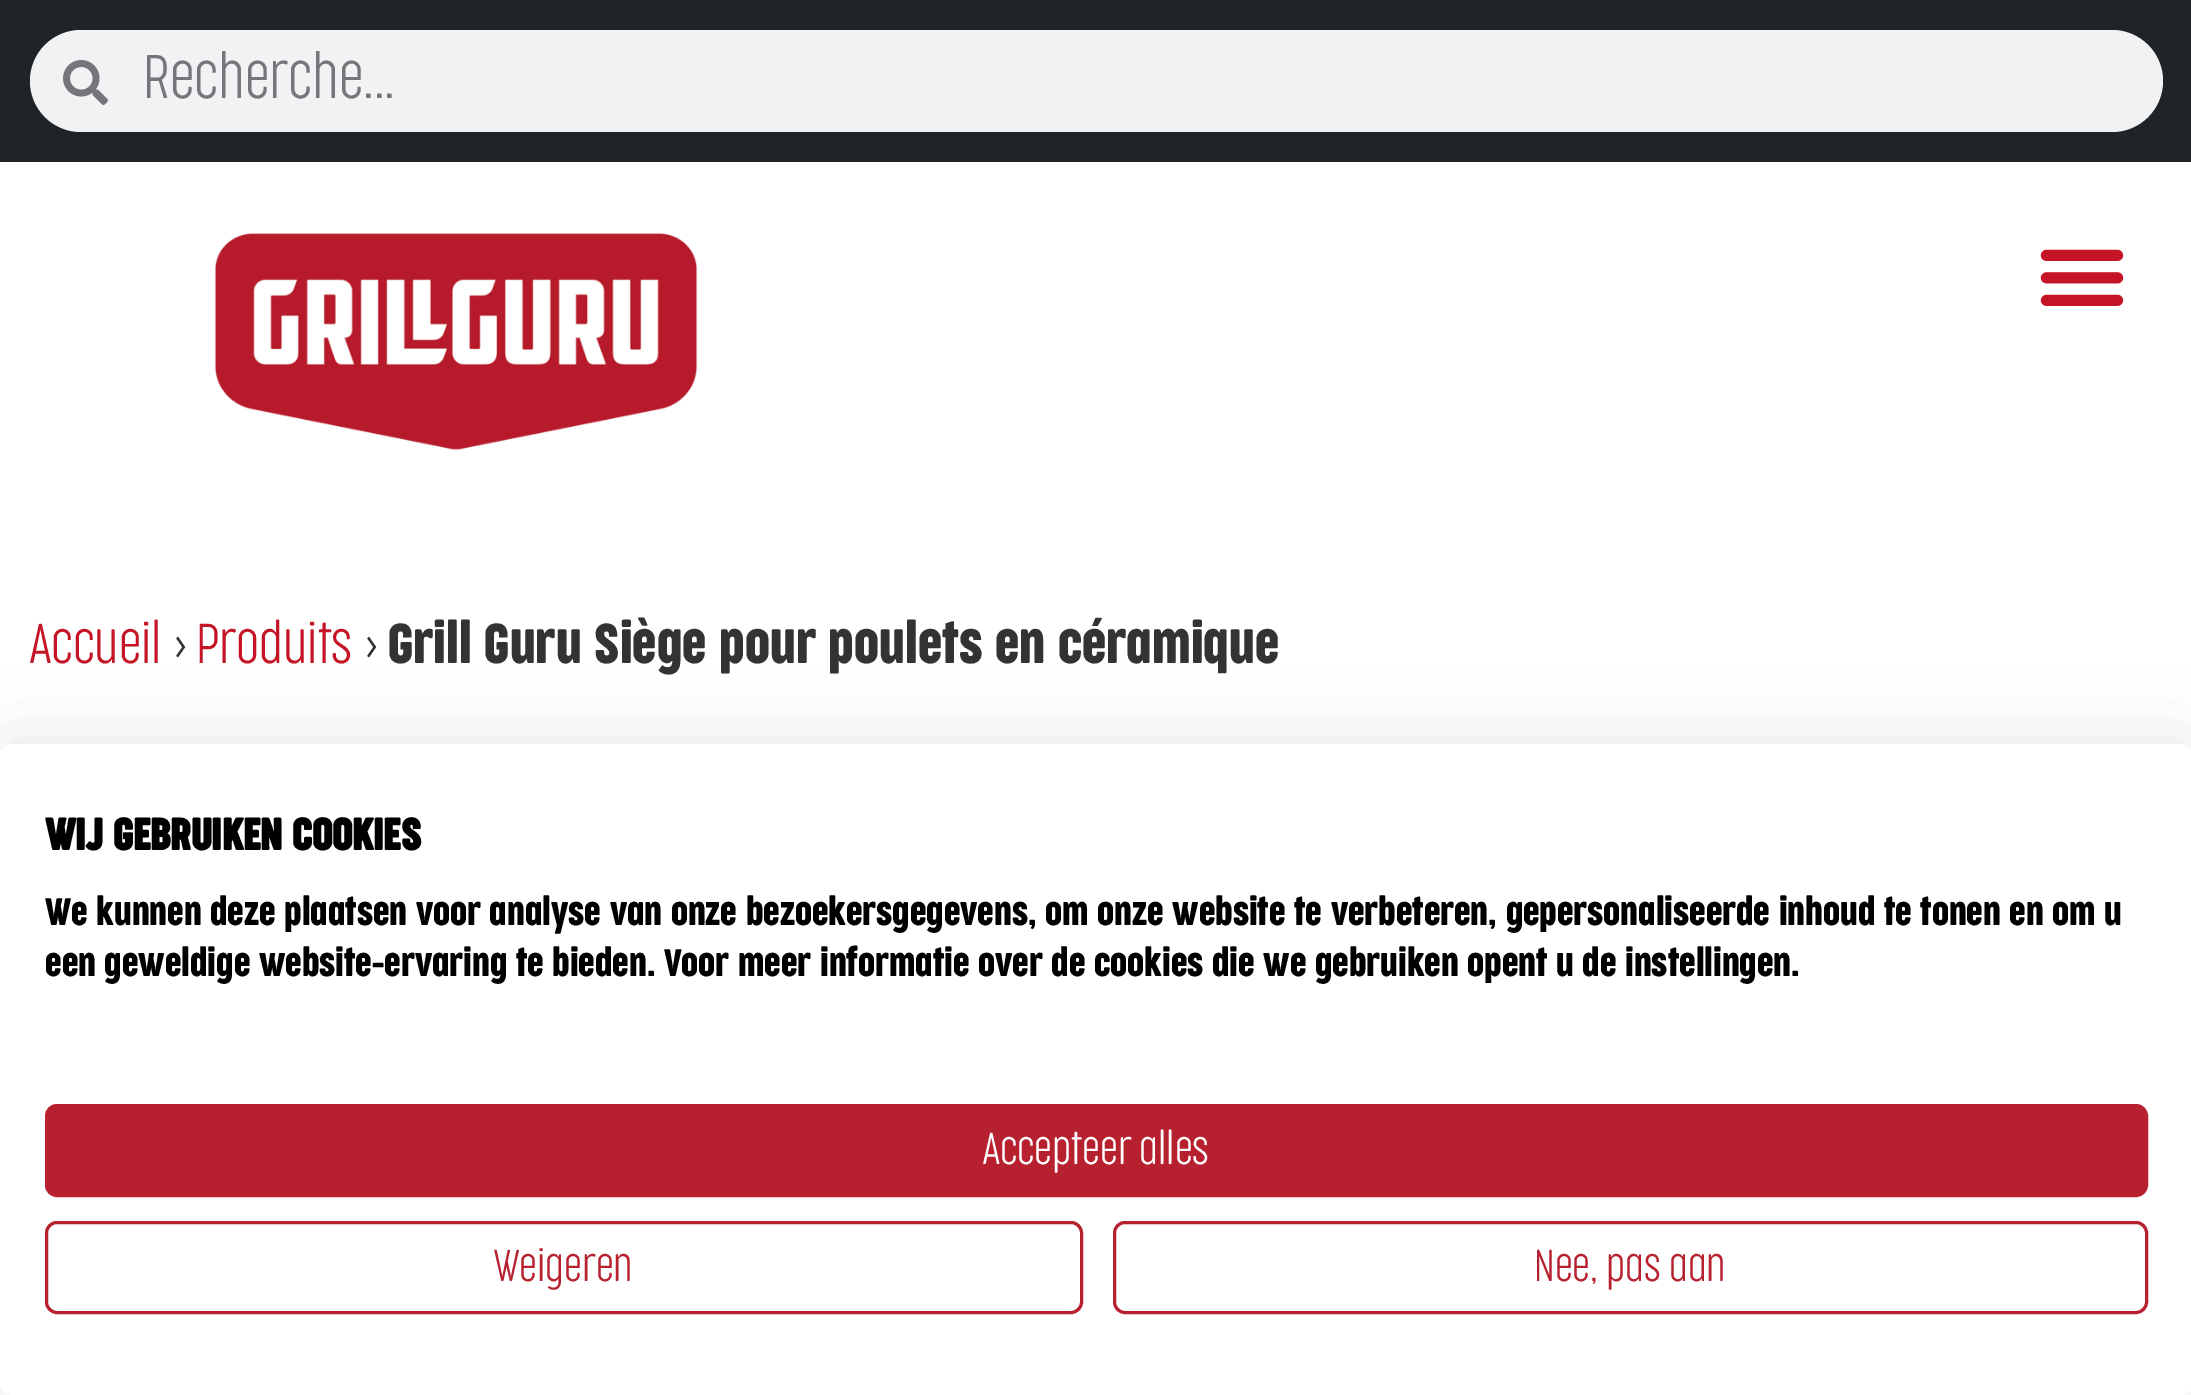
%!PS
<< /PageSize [2191 1395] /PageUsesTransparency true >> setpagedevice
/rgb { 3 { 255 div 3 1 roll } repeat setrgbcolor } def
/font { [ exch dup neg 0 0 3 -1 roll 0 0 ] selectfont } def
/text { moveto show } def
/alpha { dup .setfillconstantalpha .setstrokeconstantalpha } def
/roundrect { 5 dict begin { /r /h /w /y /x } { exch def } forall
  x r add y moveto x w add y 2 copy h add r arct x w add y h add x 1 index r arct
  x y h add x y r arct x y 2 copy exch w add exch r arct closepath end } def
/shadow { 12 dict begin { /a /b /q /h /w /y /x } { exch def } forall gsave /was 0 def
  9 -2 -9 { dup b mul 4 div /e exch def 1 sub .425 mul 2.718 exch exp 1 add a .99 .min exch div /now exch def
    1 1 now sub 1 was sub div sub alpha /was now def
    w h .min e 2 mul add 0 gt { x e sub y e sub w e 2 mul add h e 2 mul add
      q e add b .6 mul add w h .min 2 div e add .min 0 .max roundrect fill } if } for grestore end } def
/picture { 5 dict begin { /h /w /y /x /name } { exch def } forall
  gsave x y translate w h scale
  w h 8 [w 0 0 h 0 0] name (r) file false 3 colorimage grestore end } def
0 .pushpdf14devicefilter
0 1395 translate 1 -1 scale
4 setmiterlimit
255 255 255 rgb
0 0 2191 1395 rectfill
32 36 39 rgb
0 0 2191 162 rectfill
241 242 243 rgb
30 30 2133 102 51 roundrect fill
(img_01.rgb) 63 60 45 45 picture
(img_02.rgb) 215 233 483 217 picture
(img_03.rgb) 2040 249 84 57 picture
0 0 0 rgb
0 744 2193 651 12 36 0.1 shadow
255 255 255 rgb
0 744 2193 651 12 roundrect fill
183 32 46 rgb
46.5 1105.5 2100 90 10.5 roundrect gsave fill grestore
3 setlinewidth
stroke
46.5 1222.5 1035 90 10.5 roundrect stroke
1114.5 1222.5 1032 90 10.5 roundrect stroke
gsave
144 51 1935 63 rectclip
/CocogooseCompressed-ExtraLight 58 font
116 118 121 rgb
(Recherche...) 143 98 text
grestore
/CocogooseCompressed-ExtraLight 52.75 font
196 20 38 rgb
(Accueil) 30 663 text
51 51 51 rgb
(>) 172 663 text
196 20 38 rgb
(Produits) 196 663 text
51 51 51 rgb
(>) 363 663 text
/CocogooseCompressed-Regular 52.75 font
(Grill Guru Siège pour poulets en céramique) 388 663 text
/CocogooseCompressed-Bold 42 font
0 0 0 rgb
(WIJ GEBRUIKEN COOKIES) 45 850 text
/CocogooseCompressed-Regular 36 font
(We kunnen deze plaatsen voor analyse van onze bezoekersgegevens, om onze website te verbeteren, gepersonaliseerde inhoud te tonen en om u) 45 925 text
(een geweldige website-ervaring te bieden. Voor meer informatie over de cookies die we gebruiken opent u de instellingen.) 45 976 text
/CocogooseCompressed-ExtraLight 42 font
255 255 255 rgb
(Accepteer alles) 983 1164 text
183 32 46 rgb
(Weigeren) 494 1281 text
(Nee, pas aan) 1534 1281 text
.poppdf14devicefilter showpage
